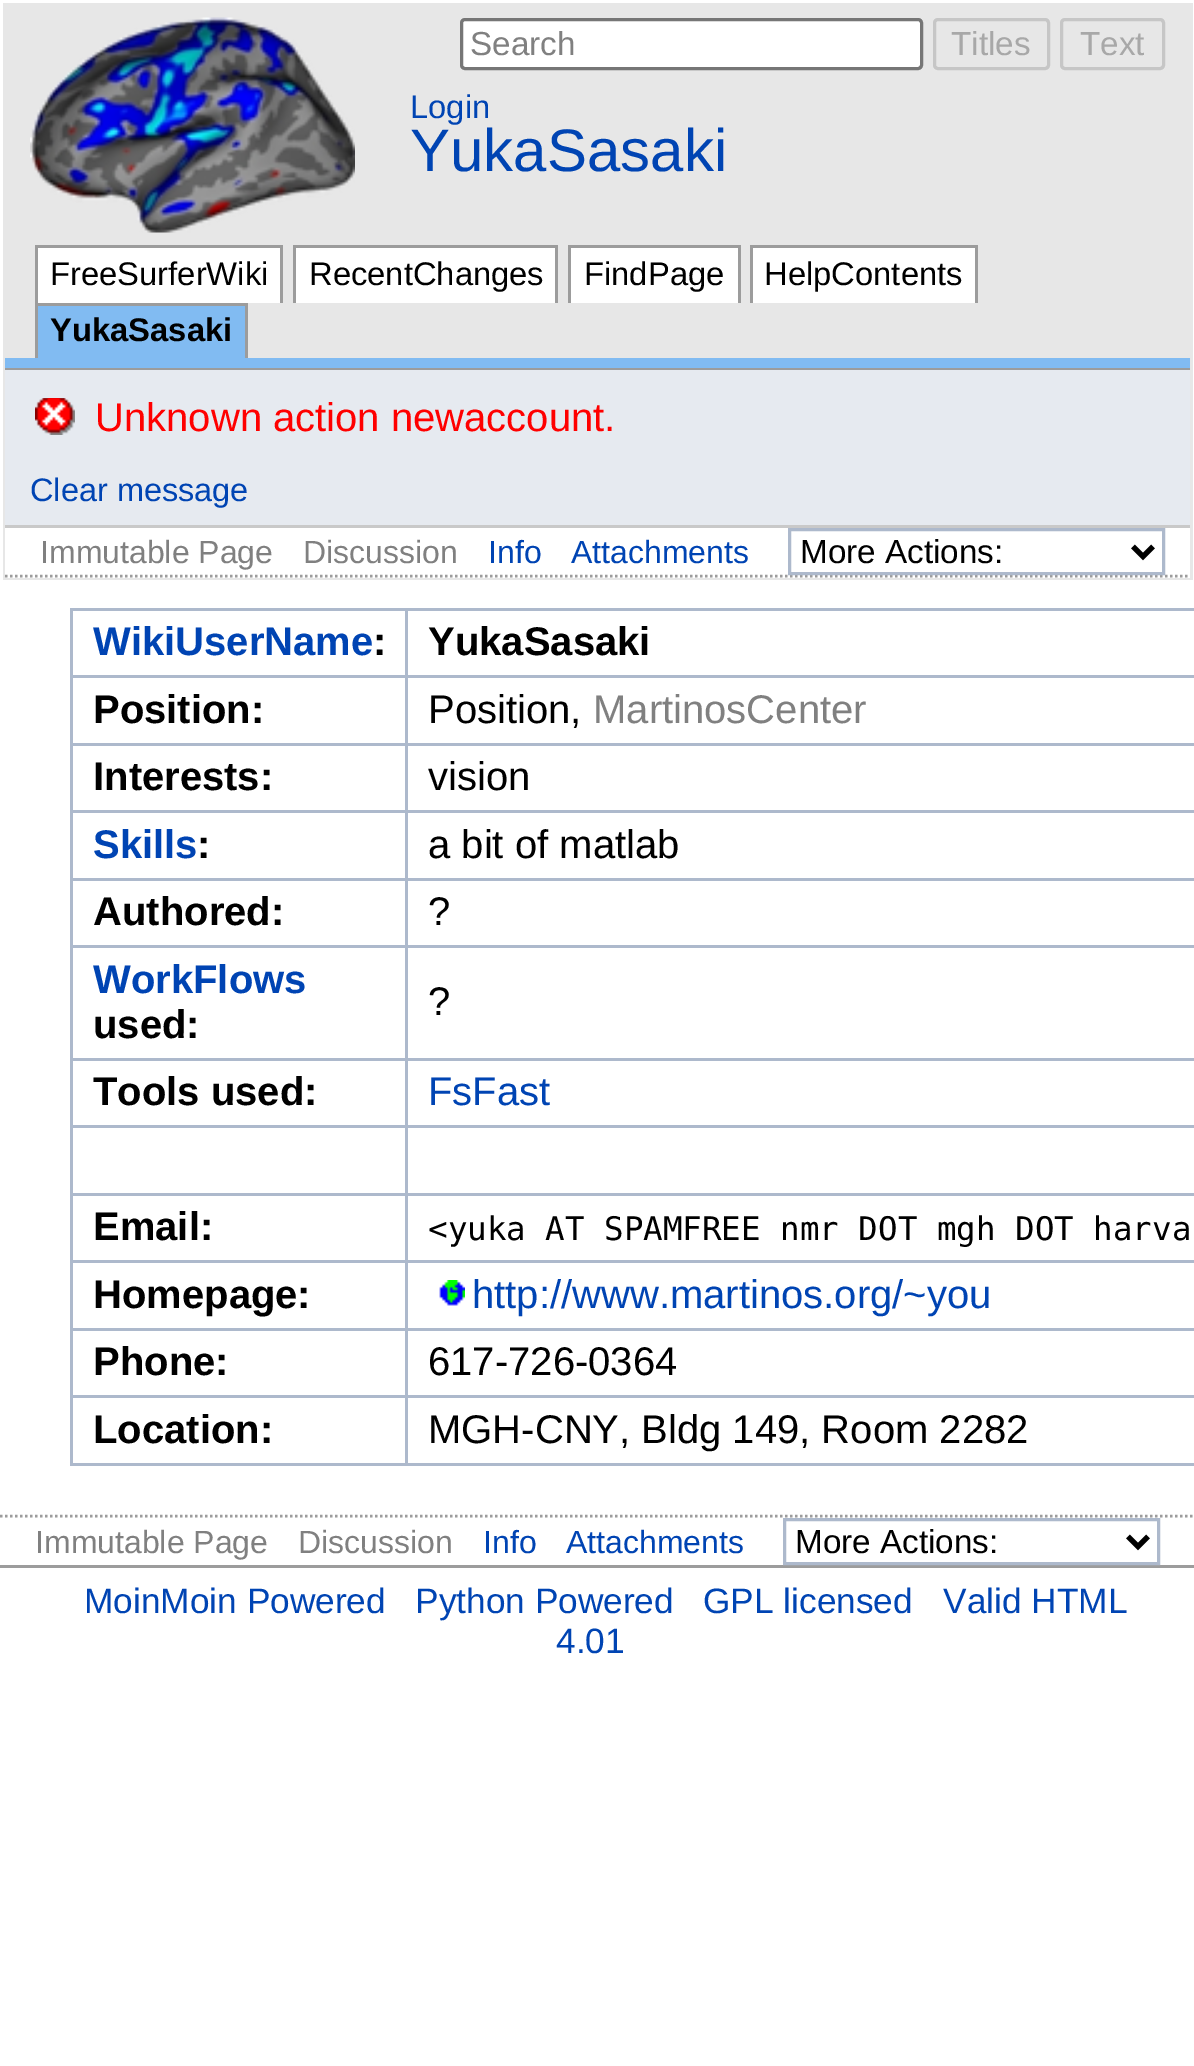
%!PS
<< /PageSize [1194 2066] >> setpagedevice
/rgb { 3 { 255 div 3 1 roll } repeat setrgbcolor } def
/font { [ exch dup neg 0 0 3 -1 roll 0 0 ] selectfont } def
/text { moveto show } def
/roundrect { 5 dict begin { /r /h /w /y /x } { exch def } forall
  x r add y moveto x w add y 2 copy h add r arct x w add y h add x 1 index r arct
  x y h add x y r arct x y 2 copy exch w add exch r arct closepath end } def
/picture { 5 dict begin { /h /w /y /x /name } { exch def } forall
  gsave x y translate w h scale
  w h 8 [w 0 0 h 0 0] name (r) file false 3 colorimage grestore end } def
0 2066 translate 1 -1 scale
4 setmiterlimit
255 255 255 rgb
0 0 1194 2066 rectfill
231 231 231 rgb
3 3 1190 577 rectfill
(img_01.rgb) 30 17 325 216 picture
255 255 255 rgb
461.5 19.5 460 49 3.5 roundrect gsave fill grestore
118 118 118 rgb
3 setlinewidth
stroke
198 198 198 rgb
934.5 19.5 114 49 3.5 roundrect stroke
1061.5 19.5 102 49 3.5 roundrect stroke
255 255 255 rgb
38 248 242 55 rectfill
156 156 156 rgb
35 245 248 3 rectfill
280 245 3 58 rectfill
35 245 3 58 rectfill
255 255 255 rgb
296 248 259 55 rectfill
156 156 156 rgb
293 245 265 3 rectfill
555 245 3 58 rectfill
293 245 3 58 rectfill
255 255 255 rgb
571 248 167 55 rectfill
156 156 156 rgb
568 245 172 3 rectfill
738 245 3 58 rectfill
568 245 3 58 rectfill
255 255 255 rgb
753 248 222 55 rectfill
156 156 156 rgb
750 245 228 3 rectfill
975 245 3 58 rectfill
750 245 3 58 rectfill
129 187 242 rgb
38 306 207 52 rectfill
156 156 156 rgb
35 303 213 3 rectfill
245 303 3 55 rectfill
35 303 3 55 rectfill
129 187 242 rgb
5 358 1185 10 rectfill
156 156 156 rgb
5 368 1185 2 rectfill
230 234 240 rgb
5 370 1185 155 rectfill
201 201 201 rgb
5 525 1185 3 rectfill
(img_02.rgb) 35 398 40 37 picture
255 255 255 rgb
5 528 1185 50 rectfill
156 156 156 rgb
2.5 setlinewidth
[2.5 2.5] 0 setdash
5 576 moveto 1185 0 rlineto stroke
173 185 204 rgb
3 setlinewidth
[] 0 setdash
789.5 529.5 374 44 rectstroke
0 0 0 rgb
5 setlinewidth
1133 546.5 moveto 10 10 rlineto 10 -10 rlineto stroke
173 185 204 rgb
405 608 789 3 rectfill
405 675 789 3 rectfill
405 743 789 3 rectfill
405 810 789 3 rectfill
405 878 789 3 rectfill
405 945 789 3 rectfill
405 1058 789 3 rectfill
405 1125 789 3 rectfill
405 1193 789 3 rectfill
405 1260 789 3 rectfill
405 1328 789 3 rectfill
405 1395 789 3 rectfill
405 1463 789 3 rectfill
405 1395 3 70 rectfill
70 1395 338 3 rectfill
405 1328 3 70 rectfill
70 1328 338 3 rectfill
405 1260 3 70 rectfill
70 1260 338 3 rectfill
405 1193 3 70 rectfill
70 1193 338 3 rectfill
405 1125 3 70 rectfill
70 1125 338 3 rectfill
405 1058 3 70 rectfill
70 1058 338 3 rectfill
405 945 3 115 rectfill
70 945 338 3 rectfill
405 878 3 70 rectfill
70 878 338 3 rectfill
405 810 3 70 rectfill
70 810 338 3 rectfill
405 743 3 70 rectfill
70 743 338 3 rectfill
405 675 3 70 rectfill
70 675 338 3 rectfill
405 608 3 70 rectfill
70 608 338 3 rectfill
70 1463 338 3 rectfill
70 1395 3 70 rectfill
70 1328 3 70 rectfill
70 1260 3 70 rectfill
70 1193 3 70 rectfill
70 1125 3 70 rectfill
70 1058 3 70 rectfill
70 945 3 115 rectfill
70 878 3 70 rectfill
70 810 3 70 rectfill
70 743 3 70 rectfill
70 675 3 70 rectfill
70 608 3 70 rectfill
(img_03.rgb) 439 1280 26 26 picture
156 156 156 rgb
2.5 setlinewidth
[2.5 2.5] 0 setdash
0 1516 moveto 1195 0 rlineto stroke
0 1565 1194 3 rectfill
173 185 204 rgb
3 setlinewidth
[] 0 setdash
784.5 1519.5 374 44 rectstroke
0 0 0 rgb
5 setlinewidth
1128 1536.5 moveto 10 10 rlineto 10 -10 rlineto stroke
/LiberationSans-Regular 33.25 font
128 128 128 rgb
(Search) 470 55 text
168 168 168 rgb
(Titles) 951 55 text
(Text) 1080 55 text
/LiberationSans-Regular 32.75 font
0 68 179 rgb
(Login) 410 118 text
/LiberationSans-Regular 60 font
(YukaSasaki) 410 171 text
/LiberationSans-Regular 32.75 font
0 0 0 rgb
(FreeSurferWiki) 50 285 text
(RecentChanges) 309 285 text
(FindPage) 584 285 text
(HelpContents) 764 285 text
/LiberationSans-Bold 32.75 font
(YukaSasaki) 50 341 text
/LiberationSans-Regular 40 font
255 0 0 rgb
(Unknown action newaccount.) 95 431 text
/LiberationSans-Regular 32.5 font
0 68 179 rgb
(Clear message) 30 501 text
/LiberationSans-Regular 32 font
128 128 128 rgb
(Immutable Page) 40 563 text
(Discussion) 303 563 text
0 68 179 rgb
(Info) 488 563 text
(Attachments) 571 563 text
/LiberationSans-Regular 33.25 font
0 0 0 rgb
(More Actions:) 800 563 text
/LiberationSans-Bold 40 font
0 68 179 rgb
(WikiUserName) 93 655 text
0 0 0 rgb
(:) 373 655 text
(YukaSasaki) 428 655 text
(Position:) 93 723 text
/LiberationSans-Regular 40 font
(Position,) 428 723 text
128 128 128 rgb
(MartinosCenter) 593 723 text
/LiberationSans-Bold 40 font
0 0 0 rgb
(Interests:) 93 790 text
/LiberationSans-Regular 40 font
(vision) 428 790 text
/LiberationSans-Bold 40 font
0 68 179 rgb
(Skills) 93 858 text
0 0 0 rgb
(:) 197 858 text
/LiberationSans-Regular 40 font
(a bit of matlab) 428 858 text
/LiberationSans-Bold 40 font
(Authored:) 93 925 text
/LiberationSans-Regular 40 font
(?) 428 925 text
/LiberationSans-Bold 40 font
0 68 179 rgb
(WorkFlows) 93 993 text
0 0 0 rgb
(used:) 93 1038 text
/LiberationSans-Regular 40 font
(?) 428 1015 text
/LiberationSans-Bold 40 font
(Tools used:) 93 1105 text
/LiberationSans-Regular 40 font
0 68 179 rgb
(FsFast) 428 1105 text
/LiberationSans-Bold 40 font
0 0 0 rgb
(Email:) 93 1240 text
/DejaVuSansMono-Regular 32.5 font
(<yuka AT SPAMFREE nmr DOT mgh DOT harva) 428 1240 text
/LiberationSans-Bold 40 font
(Homepage:) 93 1308 text
/LiberationSans-Regular 40 font
0 68 179 rgb
(http://www.martinos.org/~you) 472 1308 text
/LiberationSans-Bold 40 font
0 0 0 rgb
(Phone:) 93 1375 text
/LiberationSans-Regular 40 font
(617-726-0364) 428 1375 text
/LiberationSans-Bold 40 font
(Location:) 93 1443 text
/LiberationSans-Regular 40 font
(MGH-CNY, Bldg 149, Room 2282) 428 1443 text
/LiberationSans-Regular 32 font
128 128 128 rgb
(Immutable Page) 35 1553 text
(Discussion) 298 1553 text
0 68 179 rgb
(Info) 483 1553 text
(Attachments) 566 1553 text
/LiberationSans-Regular 33.25 font
0 0 0 rgb
(More Actions:) 795 1553 text
/LiberationSans-Regular 35.25 font
0 68 179 rgb
(MoinMoin Powered) 84 1613 text
(Python Powered) 415 1613 text
(GPL licensed) 703 1613 text
(Valid HTML) 943 1613 text
(4.01) 556 1653 text
showpage
